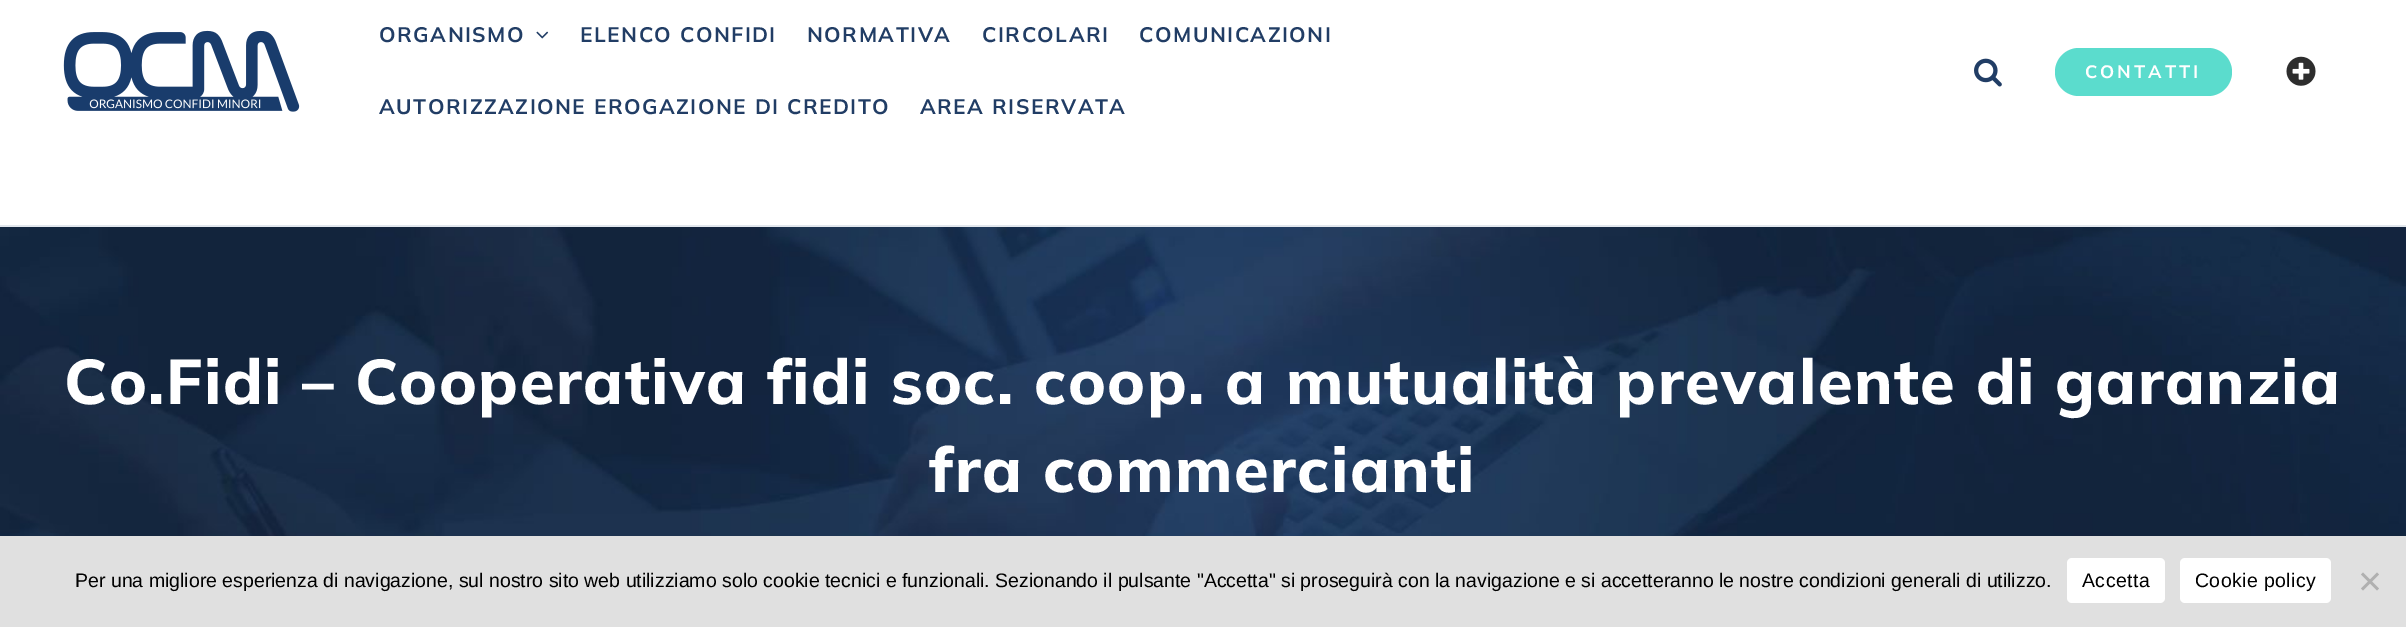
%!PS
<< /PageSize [2406 627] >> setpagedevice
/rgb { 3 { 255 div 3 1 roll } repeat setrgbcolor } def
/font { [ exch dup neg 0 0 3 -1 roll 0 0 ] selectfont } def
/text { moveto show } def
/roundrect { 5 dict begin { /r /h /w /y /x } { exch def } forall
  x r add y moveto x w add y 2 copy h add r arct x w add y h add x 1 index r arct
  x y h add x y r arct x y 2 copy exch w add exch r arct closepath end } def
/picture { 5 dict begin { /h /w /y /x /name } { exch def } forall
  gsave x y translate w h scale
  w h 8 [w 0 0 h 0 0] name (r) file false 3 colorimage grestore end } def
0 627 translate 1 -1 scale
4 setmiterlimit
255 255 255 rgb
0 0 2406 627 rectfill
(img_01.rgb) 63 30 237 82 picture
(img_02.rgb) 536 31 13 8 picture
(img_03.rgb) 1974 58 28 29 picture
91 220 205 rgb
2055 48 177 48 24 roundrect fill
(img_04.rgb) 2286 56 30 30 picture
(img_05.rgb) 0 227 2406 309 picture
226 231 237 rgb
0 225 2406 2 rectfill
224 224 224 rgb
0 536 2406 91 rectfill
255 255 255 rgb
2067 558 98 45 5 roundrect fill
2180 558 151 45 5 roundrect fill
176 176 176 rgb
2377 572.5 moveto 2 2 rlineto -16 16 rlineto -2 -2 rlineto closepath fill
2361 574.5 moveto 2 -2 rlineto 16 16 rlineto -2 2 rlineto closepath fill
/Mulish-Bold 21 font
33 61 101 rgb
379 42 moveto 1.5 0 (ORGANISMO) ashow
580 42 moveto 1.5 0 (ELENCO CONFIDI) ashow
807 42 moveto 1.5 0 (NORMATIVA) ashow
982 42 moveto 1.5 0 (CIRCOLARI) ashow
1139 42 moveto 1.5 0 (COMUNICAZIONI) ashow
379 114 moveto 1.5 0 (AUTORIZZAZIONE EROGAZIONE DI CREDITO) ashow
920 114 moveto 1.5 0 (AREA RISERVATA) ashow
/Mulish-Bold 18 font
255 255 255 rgb
2085 78 moveto 3 0 (CONTATTI) ashow
/Mulish-ExtraBold 63 font
64 404 moveto 1.5 0 (Co.Fidi – Cooperativa fidi soc. coop. a mutualità prevalente di garanzia) ashow
929 492 moveto 1.5 0 (fra commercianti) ashow
/LiberationSans-Regular 19.5 font
0 0 0 rgb
(Per una migliore esperienza di navigazione, sul nostro sito web utilizziamo solo cookie tecnici e funzionali. Sezionando il pulsante "Accetta" si proseguirà con la navigazione e si accetteranno le nostre condizioni generali di utilizzo.) 75 587 text
2082 587 moveto 0.4 0 (Accetta) ashow
2195 587 moveto 0.4 0 (Cookie policy) ashow
showpage
